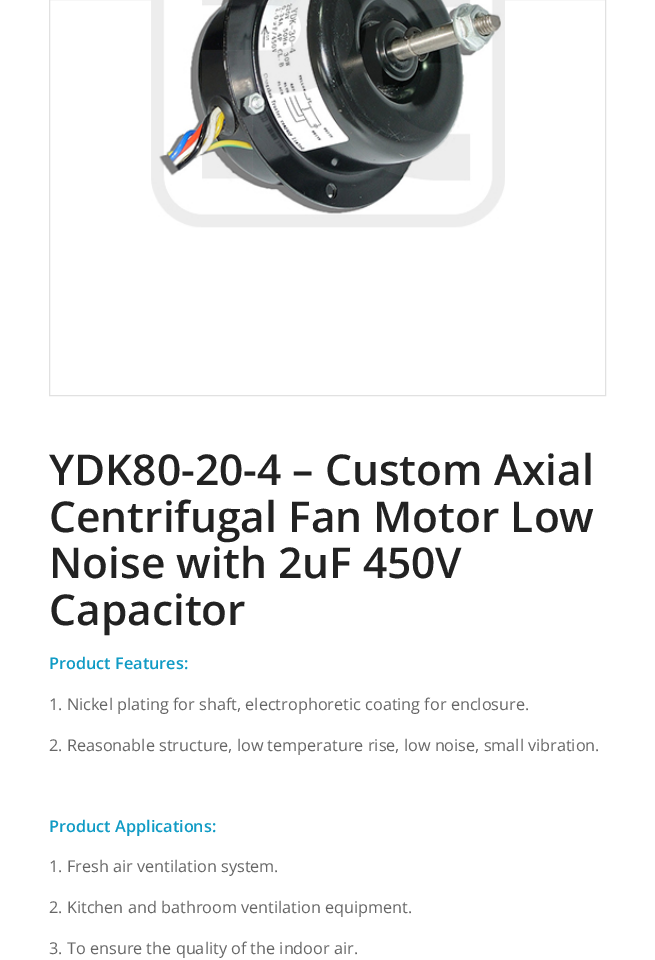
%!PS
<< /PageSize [655 960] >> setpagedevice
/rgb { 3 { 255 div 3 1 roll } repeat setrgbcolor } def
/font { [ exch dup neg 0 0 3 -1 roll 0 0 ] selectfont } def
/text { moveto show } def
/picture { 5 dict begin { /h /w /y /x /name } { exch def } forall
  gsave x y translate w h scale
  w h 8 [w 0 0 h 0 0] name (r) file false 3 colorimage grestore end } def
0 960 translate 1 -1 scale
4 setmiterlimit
255 255 255 rgb
0 0 655 960 rectfill
225 225 225 rgb
49.5 -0.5 556 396 rectstroke
(img_01.rgb) 151 0 354 228 picture
/OpenSans-SemiBold 42.5 font
34 34 34 rgb
(YDK80-20-4 – Custom Axial) 49 485 text
(Centrifugal Fan Motor Low) 49 532 text
(Noise with 2uF 450V) 49 578 text
(Capacitor) 49 625 text
/OpenSans-SemiBold 16.25 font
16 155 197 rgb
(Product Features:) 49 669 text
/OpenSans-Regular 16.25 font
102 102 102 rgb
(1. Nickel plating for shaft, electrophoretic coating for enclosure.) 49 710 text
(2. Reasonable structure, low temperature rise, low noise, small vibration.) 49 751 text
/OpenSans-SemiBold 16.25 font
16 155 197 rgb
(Product Applications:) 49 832 text
/OpenSans-Regular 16.25 font
102 102 102 rgb
(1. Fresh air ventilation system.) 49 872 text
(2. Kitchen and bathroom ventilation equipment.) 49 913 text
(3. To ensure the quality of the indoor air.) 49 954 text
showpage
